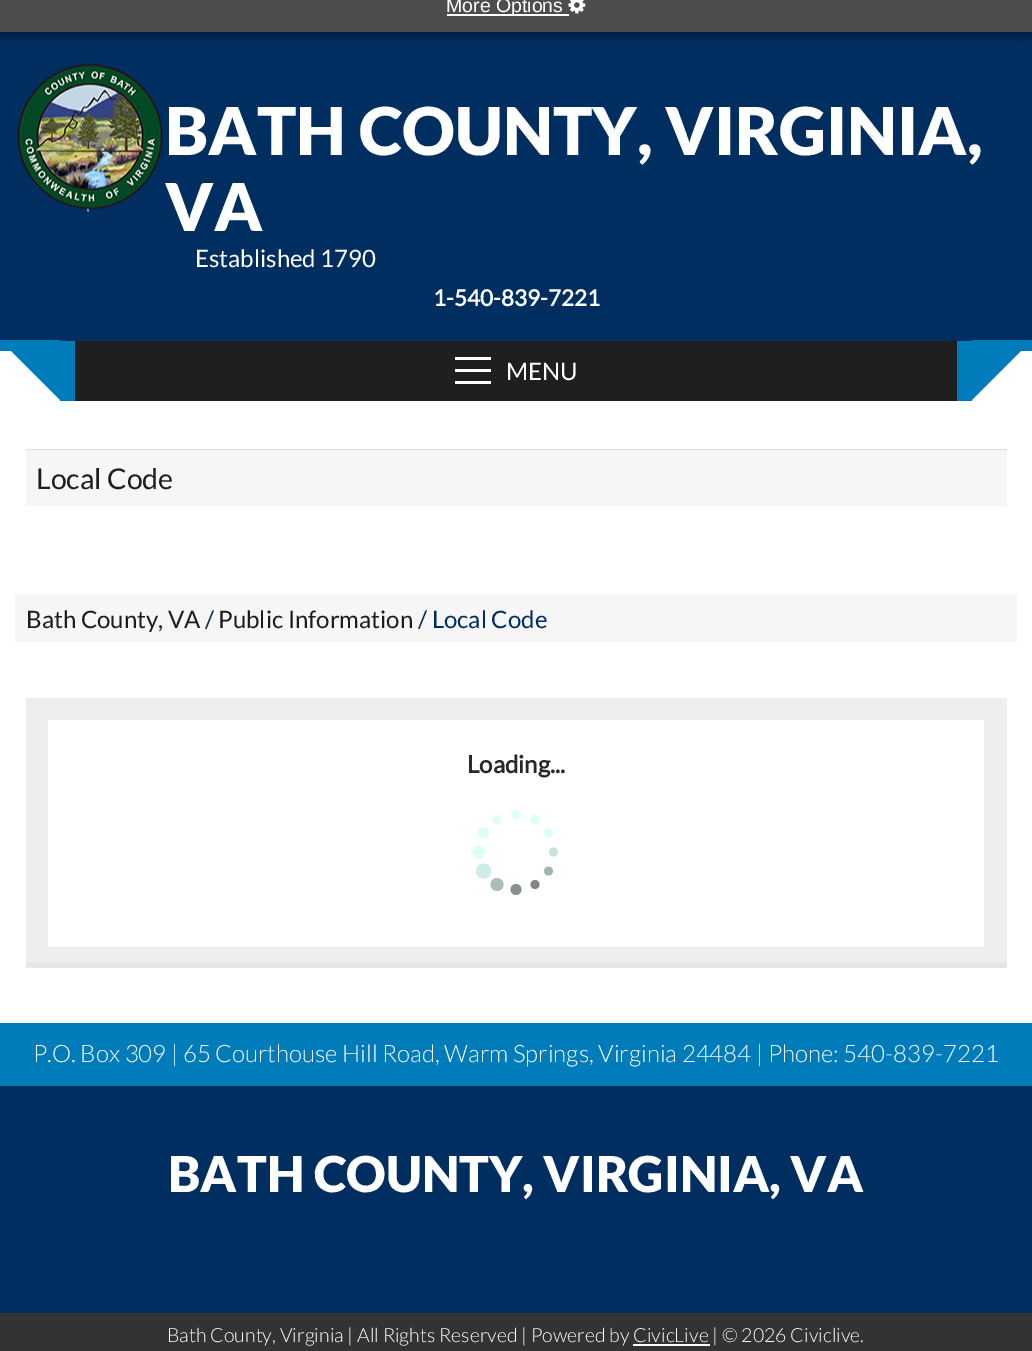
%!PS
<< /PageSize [1032 1351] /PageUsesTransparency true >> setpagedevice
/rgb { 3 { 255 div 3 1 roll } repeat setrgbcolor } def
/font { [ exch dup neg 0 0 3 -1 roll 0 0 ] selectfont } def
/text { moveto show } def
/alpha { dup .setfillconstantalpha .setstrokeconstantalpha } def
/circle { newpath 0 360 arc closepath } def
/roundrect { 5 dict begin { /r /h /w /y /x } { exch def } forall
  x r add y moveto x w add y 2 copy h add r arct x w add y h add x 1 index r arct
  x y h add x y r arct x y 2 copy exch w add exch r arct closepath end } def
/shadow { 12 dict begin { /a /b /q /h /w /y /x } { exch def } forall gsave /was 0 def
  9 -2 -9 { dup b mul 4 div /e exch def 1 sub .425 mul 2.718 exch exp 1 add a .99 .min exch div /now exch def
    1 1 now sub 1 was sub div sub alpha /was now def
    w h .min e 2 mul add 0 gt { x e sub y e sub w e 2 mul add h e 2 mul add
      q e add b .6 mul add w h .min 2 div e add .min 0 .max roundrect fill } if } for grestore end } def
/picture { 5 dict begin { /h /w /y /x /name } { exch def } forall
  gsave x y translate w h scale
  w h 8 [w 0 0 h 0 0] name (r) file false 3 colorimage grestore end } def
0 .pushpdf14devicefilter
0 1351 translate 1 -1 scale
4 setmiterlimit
255 255 255 rgb
0 0 1032 1351 rectfill
0 46 97 rgb
0 32 1032 309 rectfill
0 0 0 rgb
0 -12 1032 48 0 4 0.4 shadow
77 77 77 rgb
0 0 1032 32 rectfill
255 255 255 rgb
447 14 122 2 rectfill
(img_01.rgb) 568 0 18 14 picture
0 124 186 rgb
0 341 1032 10 rectfill
(img_02.rgb) 17 63 146 149 picture
60 351 912 50 rectfill
60 340 moveto 0 60 rlineto -60 -60 rlineto closepath fill
31 31 31 rgb
75 341 882 60 rectfill
255 255 255 rgb
455 369 36 3 rectfill
455 357 36 3 rectfill
455 381 36 3 rectfill
0 124 186 rgb
972 340 moveto 60 0 rlineto -60 60 rlineto closepath fill
220 220 220 rgb
26 449 981 1 rectfill
246 246 246 rgb
26 450 981 56 rectfill
15 594 1002 48 rectfill
238 238 238 rgb
26 698 981 264 rectfill
230 230 230 rgb
26 962 981 6 rectfill
255 255 255 rgb
48 720 936 227 rectfill
220 255 248 rgb
497 819.5 4.5 circle fill
516 814.5 4.5 circle fill
535 819.5 4.5 circle fill
483.5 833 5.5 circle fill
548.5 833 4.5 circle fill
478.5 852 6.5 circle fill
199 227 221 rgb
553.5 852 4.5 circle fill
171 190 186 rgb
497 884.5 6.5 circle fill
206 236 230 rgb
483.5 871 7.5 circle fill
164 180 177 rgb
548.5 871 4.5 circle fill
136 143 142 rgb
516 889.5 5.5 circle fill
129 134 133 rgb
535 884.5 4.5 circle fill
0 46 97 rgb
0 1086 1032 227 rectfill
0 124 186 rgb
0 1023 1032 63 rectfill
51 51 51 rgb
0 1313 1032 38 rectfill
255 255 255 rgb
633 1344 77 2 rectfill
/LiberationSans-Regular 19.5 font
(More Options) 446 12 text
/Lato-Black 66 font
(BATH COUNTY, VIRGINIA,) 165 155 text
(VA) 165 231 text
/Lato-Regular 24 font
(Established 1790) 195 267 text
/Lato-Bold 22.5 font
(1-540-839-7221) 433 306 text
/Lato-Regular 24 font
(MENU) 506 380 text
/Lato-Regular 28.5 font
29 29 29 rgb
(Local Code) 36 489 text
/Lato-Regular 24 font
(Bath County, VA) 26 628 text
0 46 97 rgb
(/) 205 628 text
29 29 29 rgb
(Public Information) 218 628 text
0 46 97 rgb
(/ Local Code) 418 628 text
/Lato-Bold 24 font
40 40 40 rgb
(Loading...) 467 773 text
/Lato-Light 24 font
255 255 255 rgb
(P.O. Box 309 | 65 Courthouse Hill Road, Warm Springs, Virginia 24484 | Phone: 540-839-7221) 33 1062 text
/Lato-Black 49.5 font
(BATH COUNTY, VIRGINIA, VA) 168 1192 text
/Lato-Light 19.5 font
(Bath County, Virginia | All Rights Reserved | Powered by CivicLive | © 2026 Civiclive.) 167 1342 text
.poppdf14devicefilter showpage
